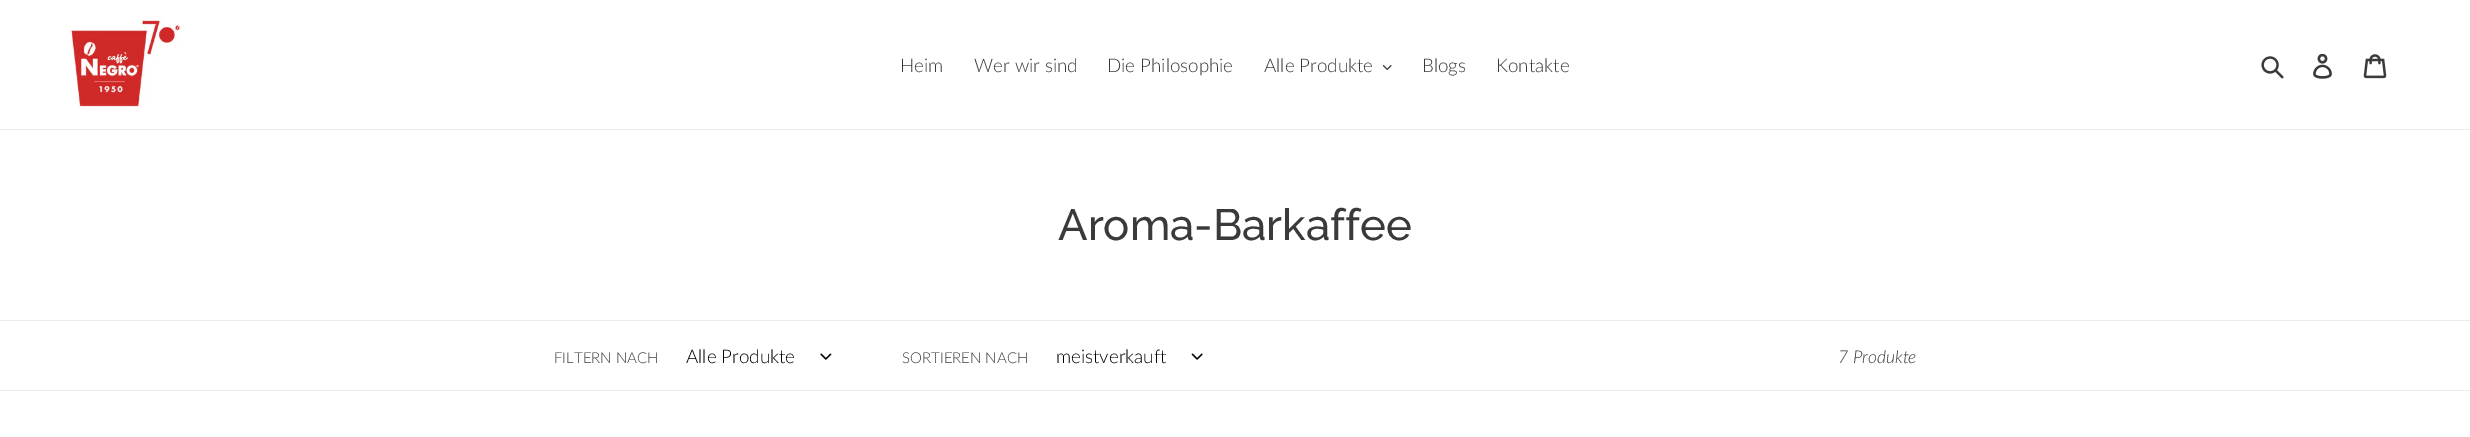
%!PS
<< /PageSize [2470 437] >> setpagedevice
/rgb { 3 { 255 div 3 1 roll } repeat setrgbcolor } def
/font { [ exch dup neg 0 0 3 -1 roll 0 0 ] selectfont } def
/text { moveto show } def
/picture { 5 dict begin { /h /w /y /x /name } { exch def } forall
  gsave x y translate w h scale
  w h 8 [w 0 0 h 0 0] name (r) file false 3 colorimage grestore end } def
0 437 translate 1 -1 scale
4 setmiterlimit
255 255 255 rgb
0 0 2470 437 rectfill
235 235 235 rgb
0 129 2470 1 rectfill
(img_01.rgb) 69 19 112 89 picture
(img_02.rgb) 1383 65 9 5 picture
(img_03.rgb) 2261 56 23 23 picture
(img_04.rgb) 2313 54 19 25 picture
(img_05.rgb) 2363 54 24 25 picture
0 320 2470 1 rectfill
0 390 2470 1 rectfill
(img_06.rgb) 820 353 12 7 picture
(img_07.rgb) 1191 353 12 7 picture
/Lato-Light 18.75 font
58 58 58 rgb
(Heim) 900 72 text
(Wer wir sind) 974 72 text
(Die Philosophie) 1107 72 text
(Alle Produkte) 1264 72 text
(Blogs) 1422 72 text
(Kontakte) 1496 72 text
/Raleway-Medium 43.75 font
(Aroma-Barkaffee) 1058 240 text
/Lato-Light 15 font
(FILTERN NACH) 554 363 text
/Lato-Light 18.75 font
0 0 0 rgb
(Alle Produkte) 686 363 text
/Lato-Light 15 font
58 58 58 rgb
(SORTIEREN NACH) 902 363 text
/Lato-Light 18.75 font
0 0 0 rgb
(meistverkauft) 1056 363 text
/Lato-LightItalic 17.5 font
58 58 58 rgb
(7 Produkte) 1838 363 text
showpage
